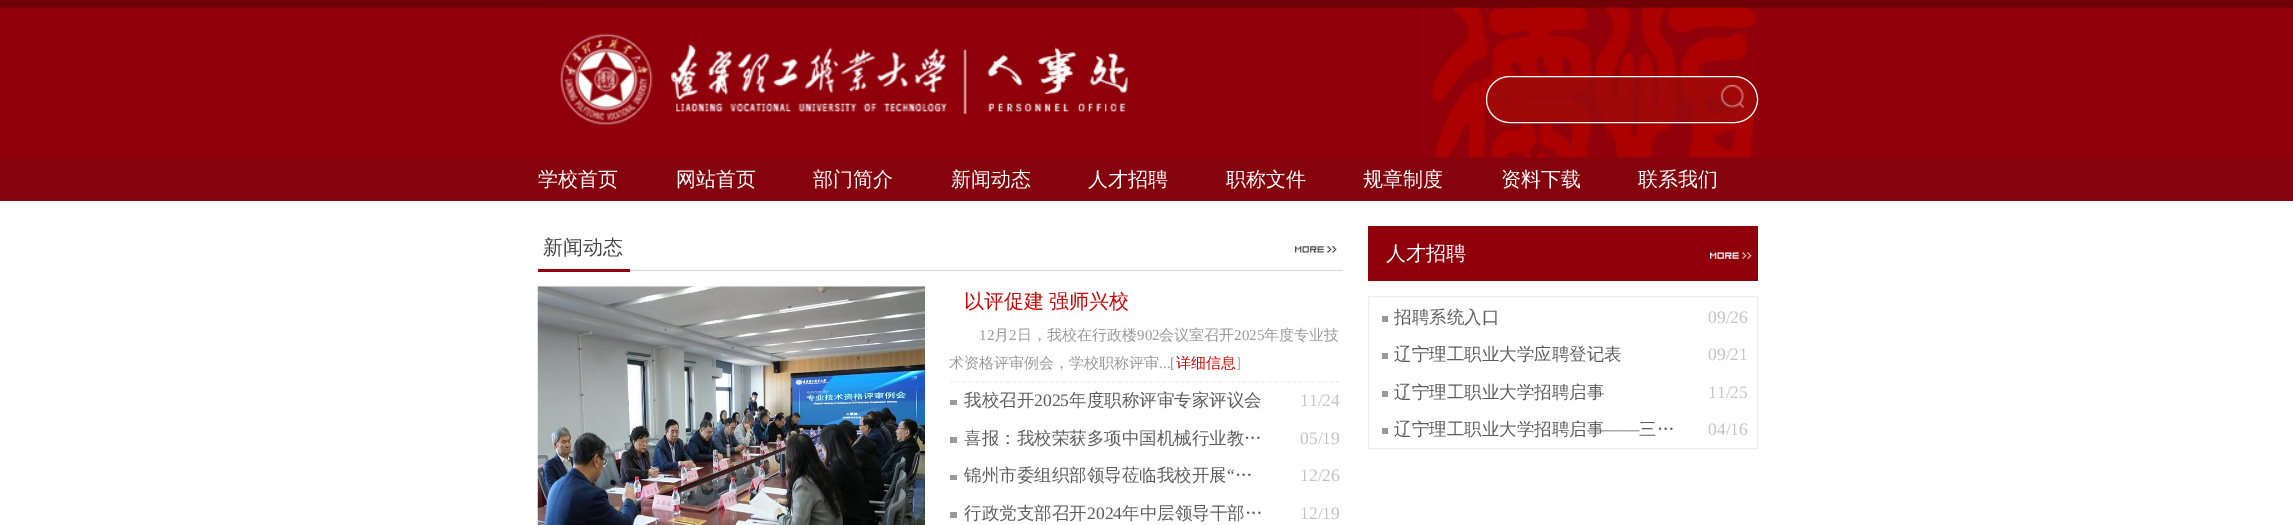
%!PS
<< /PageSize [2293 525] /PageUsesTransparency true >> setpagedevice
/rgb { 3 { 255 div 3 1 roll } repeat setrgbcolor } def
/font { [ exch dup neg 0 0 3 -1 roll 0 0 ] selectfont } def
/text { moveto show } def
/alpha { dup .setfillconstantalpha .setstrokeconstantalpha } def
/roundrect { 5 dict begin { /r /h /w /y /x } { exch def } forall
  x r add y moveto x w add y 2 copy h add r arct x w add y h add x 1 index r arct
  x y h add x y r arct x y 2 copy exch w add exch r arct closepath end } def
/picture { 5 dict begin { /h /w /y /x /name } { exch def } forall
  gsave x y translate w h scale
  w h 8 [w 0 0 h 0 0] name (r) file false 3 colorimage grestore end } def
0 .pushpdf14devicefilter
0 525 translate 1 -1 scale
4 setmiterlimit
255 255 255 rgb
0 0 2293 525 rectfill
144 0 10 rgb
0 8 2293 150 rectfill
113 0 6 rgb
0 0 2293 8 rectfill
(img_01.rgb) 538 7 1220 151 picture
0.6 alpha
153 14 13 rgb
1486.5 76.5 271 46 23 roundrect fill
1 alpha
255 255 255 rgb
1486.5 76.5 271 46 23 roundrect stroke
(img_02.rgb) 1721 85 23 23 picture
132 3 12 rgb
0 158 2293 43 rectfill
215 215 215 rgb
630 270 713 1 rectfill
144 0 10 rgb
538 269 92 3 rectfill
(img_03.rgb) 1295 246 42 7 picture
(img_04.rgb) 537 286 388 239 picture
238 238 238 rgb
1.2 setlinewidth
[3.75 2.48] 0 setdash
950 382 moveto 390 0 rlineto stroke
153 153 153 rgb
950 400 7 5 rectfill
950 437 7 6 rectfill
950 475 7 5 rectfill
950 512 7 6 rectfill
144 0 10 rgb
1368 226 390 55 rectfill
(img_05.rgb) 1710 252 42 7 picture
238 238 238 rgb
1 setlinewidth
[] 0 setdash
1368.5 296.5 389 152 rectstroke
153 153 153 rgb
1382 316 6 6 rectfill
1382 353 6 6 rectfill
1382 391 6 6 rectfill
1382 428 6 6 rectfill
/WenQuanYiZenHei-Medium 20 font
255 255 255 rgb
(学校首页) 538 186 text
(网站首页) 676 186 text
(部门简介) 813 186 text
(新闻动态) 951 186 text
(人才招聘) 1088 186 text
(职称文件) 1226 186 text
(规章制度) 1363 186 text
(资料下载) 1501 186 text
(联系我们) 1638 186 text
70 70 70 rgb
(新闻动态) 543 254 text
202 5 4 rgb
(以评促建) 964 308 text
(强师兴校) 1049 308 text
/LiberationSerif-Regular 15 font
153 153 153 rgb
(12) 979 340 text
/WenQuanYiZenHei-Medium 15 font
(月) 994 340 text
/LiberationSerif-Regular 15 font
(2) 1009 340 text
/WenQuanYiZenHei-Medium 15 font
(日，我校在行政楼) 1017 340 text
/LiberationSerif-Regular 15 font
(902) 1137 340 text
/WenQuanYiZenHei-Medium 15 font
(会议室召开) 1159 340 text
/LiberationSerif-Regular 15 font
(2025) 1234 340 text
/WenQuanYiZenHei-Medium 15 font
(年度专业技) 1264 340 text
(术资格评审例会，学校职称评审) 949 368 text
/LiberationSerif-Regular 15 font
(...[) 1159 368 text
/WenQuanYiZenHei-Medium 15 font
202 5 4 rgb
(详细信息) 1176 368 text
/LiberationSerif-Regular 15 font
153 153 153 rgb
(]) 1236 368 text
/WenQuanYiZenHei-Medium 17.5 font
92 92 92 rgb
(我校召开) 964 406 text
/LiberationSerif-Regular 17.5 font
(2025) 1034 406 text
/WenQuanYiZenHei-Medium 17.5 font
(年度职称评审专家评议会) 1069 406 text
/LiberationSerif-Regular 17.5 font
195 195 195 rgb
(11/24) 1300 406 text
/WenQuanYiZenHei-Medium 17.5 font
92 92 92 rgb
(喜报：我校荣获多项中国机械行业教…) 964 444 text
/LiberationSerif-Regular 17.5 font
195 195 195 rgb
(05/19) 1300 444 text
/WenQuanYiZenHei-Medium 17.5 font
92 92 92 rgb
(锦州市委组织部领导莅临我校开展) 964 481 text
/LiberationSerif-Regular 17.5 font
(“) 1227 481 text
/WenQuanYiZenHei-Medium 17.5 font
(…) 1235 481 text
/LiberationSerif-Regular 17.5 font
195 195 195 rgb
(12/26) 1300 481 text
/WenQuanYiZenHei-Medium 17.5 font
92 92 92 rgb
(行政党支部召开) 964 519 text
/LiberationSerif-Regular 17.5 font
(2024) 1087 519 text
/WenQuanYiZenHei-Medium 17.5 font
(年中层领导干部…) 1122 519 text
/LiberationSerif-Regular 17.5 font
195 195 195 rgb
(12/19) 1300 519 text
/WenQuanYiZenHei-Medium 20 font
255 255 255 rgb
(人才招聘) 1386 260 text
/WenQuanYiZenHei-Medium 17.5 font
92 92 92 rgb
(招聘系统入口) 1394 323 text
/LiberationSerif-Regular 17.5 font
195 195 195 rgb
(09/26) 1708 323 text
/WenQuanYiZenHei-Medium 17.5 font
92 92 92 rgb
(辽宁理工职业大学应聘登记表) 1394 360 text
/LiberationSerif-Regular 17.5 font
195 195 195 rgb
(09/21) 1708 360 text
/WenQuanYiZenHei-Medium 17.5 font
92 92 92 rgb
(辽宁理工职业大学招聘启事) 1394 398 text
/LiberationSerif-Regular 17.5 font
195 195 195 rgb
(11/25) 1708 398 text
/WenQuanYiZenHei-Medium 17.5 font
92 92 92 rgb
(辽宁理工职业大学招聘启事) 1394 435 text
/LiberationSerif-Regular 17.5 font
(——) 1604 435 text
/WenQuanYiZenHei-Medium 17.5 font
(三…) 1639 435 text
/LiberationSerif-Regular 17.5 font
195 195 195 rgb
(04/16) 1708 435 text
.poppdf14devicefilter showpage
